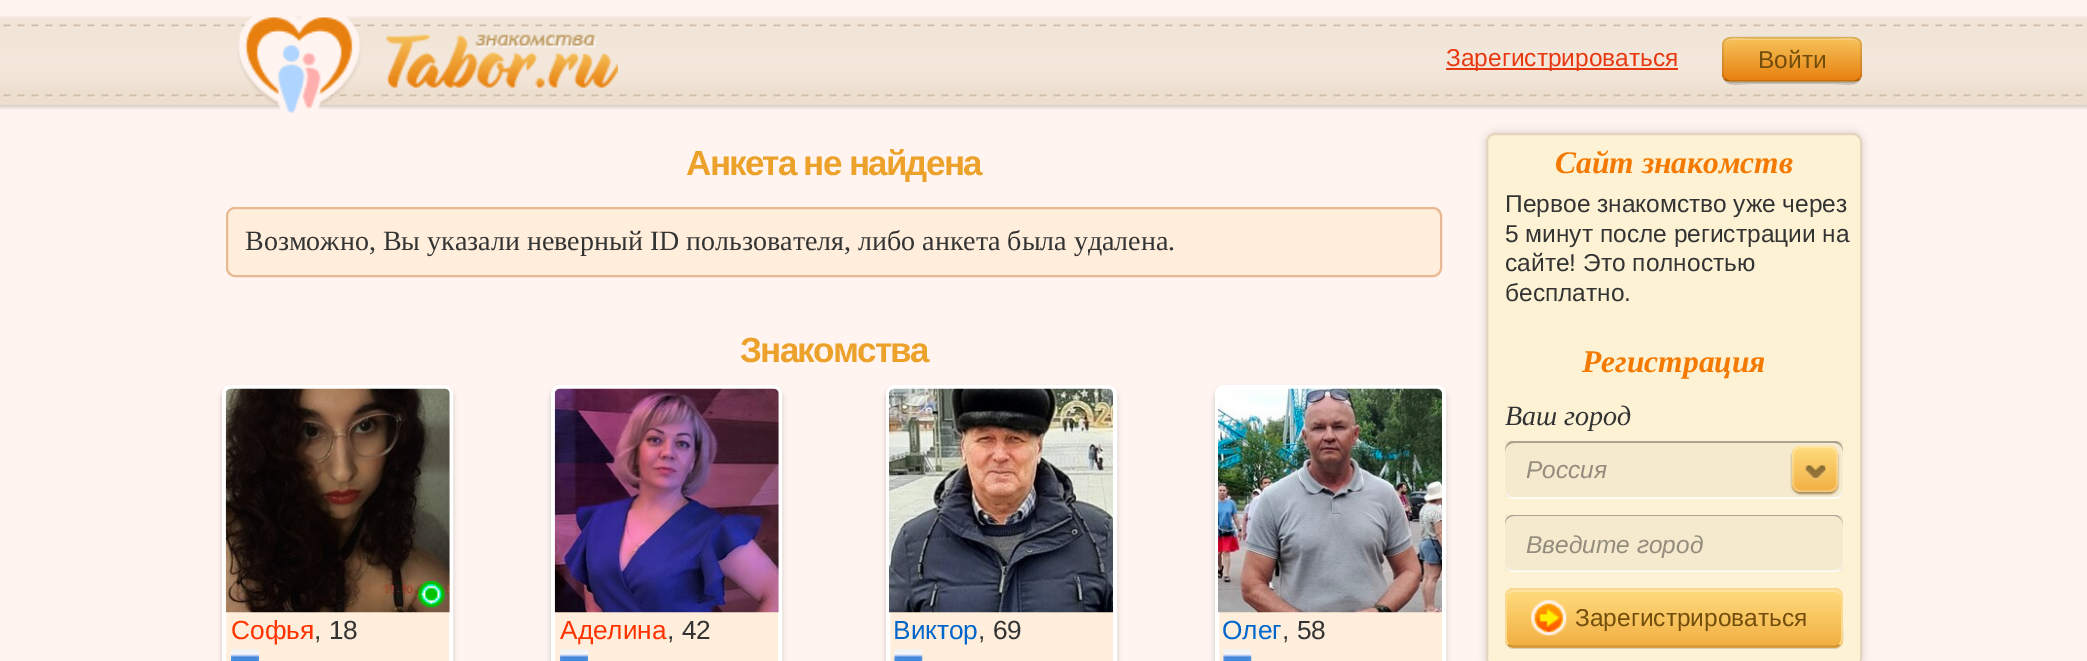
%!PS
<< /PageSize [2087 661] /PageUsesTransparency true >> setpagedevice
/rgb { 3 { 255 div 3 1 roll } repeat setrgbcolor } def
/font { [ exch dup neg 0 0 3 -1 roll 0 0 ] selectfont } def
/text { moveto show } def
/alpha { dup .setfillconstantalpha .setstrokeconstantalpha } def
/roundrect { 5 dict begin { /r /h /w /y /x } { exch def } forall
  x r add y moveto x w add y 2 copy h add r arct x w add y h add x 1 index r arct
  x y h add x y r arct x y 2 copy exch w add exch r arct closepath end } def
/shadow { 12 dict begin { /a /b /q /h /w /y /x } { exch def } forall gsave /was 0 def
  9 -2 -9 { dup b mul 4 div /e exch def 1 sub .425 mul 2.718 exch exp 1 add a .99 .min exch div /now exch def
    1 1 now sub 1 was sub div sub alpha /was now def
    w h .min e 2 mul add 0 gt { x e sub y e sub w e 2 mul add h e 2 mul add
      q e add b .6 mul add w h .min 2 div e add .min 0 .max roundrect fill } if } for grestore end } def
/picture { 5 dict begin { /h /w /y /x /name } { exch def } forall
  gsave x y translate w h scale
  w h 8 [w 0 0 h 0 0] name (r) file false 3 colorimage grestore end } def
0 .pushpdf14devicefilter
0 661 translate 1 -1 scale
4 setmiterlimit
255 244 240 rgb
0 0 2087 661 rectfill
(img_01.rgb) 0 16 2087 94 picture
(img_02.rgb) 237 16 381 98 picture
232 56 15 rgb
1446 68 232 2 rectfill
0.15 alpha
0 0 0 rgb
1722 74 moveto 0 15 19 10 29 10 rcurveto 82 0 rlineto 10 0 29 5 29 -10 rcurveto 0 4 -4 8 -9 8 rcurveto -122 0 rlineto -5 0 -9 -4 -9 -8 rcurveto closepath fill
1 alpha
246 194 91 rgb
1722 37 140 45 9 roundrect fill
gsave
1722 37 140 45 9 roundrect clip newpath
gsave 1722 39 moveto 140 0 rlineto 0 42 rlineto -140 0 rlineto closepath clip newpath
<< /ShadingType 2 /ColorSpace /DeviceRGB /Coords [1792 38 1792 81] /Extend [true true] /Function << /FunctionType 2 /Domain [0 1] /C0 [0.965 0.761 0.357] /C1 [0.91 0.502 0.059] /N 1 >> >> shfill grestore
grestore
0.25 alpha
255 255 255 rgb
1731 40 moveto 122 0 rlineto 4 0 7 3 7 7 rcurveto 0 -13 -21 -8 -27 -8 rcurveto -82 0 rlineto -6 0 -27 -5 -27 8 rcurveto 0 -4 3 -7 7 -7 rcurveto closepath fill
0 0 0 rgb
1.8 setlinewidth
1859 79 moveto -1.5 1.5 -3.5 2.5 -6 2.5 rcurveto -122 0 rlineto -2.5 0 -4.5 -1 -6 -2.5 rcurveto stroke
0.1 alpha
1725 79 moveto -3.5 -3.5 -2 -10 -2 -15 rcurveto 0 -29.5 -3.5 -26.5 28 -26.5 rcurveto 82 0 rlineto 31.5 0 28 -3 28 26.5 rcurveto 0 5 1.5 11.5 -2 15 rcurveto stroke
1 alpha
255 238 219 rgb
227 208 1214 68 8 roundrect gsave fill grestore
232 185 146 rgb
2 setlinewidth
stroke
0 0 0 rgb
222 389 231 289 9 2.5 0.2 shadow
255 238 219 rgb
224 387 227 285 7 roundrect gsave fill grestore
255 255 255 rgb
4 setlinewidth
stroke
(img_03.rgb) 225 388 225 225 picture
(img_04.rgb) 418 581 27 27 picture
(img_05.rgb) 231 649 28 12 picture
0 0 0 rgb
551 389 231 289 9 2.5 0.2 shadow
255 238 219 rgb
553 387 227 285 7 roundrect gsave fill grestore
255 255 255 rgb
stroke
(img_06.rgb) 554 388 225 225 picture
(img_05.rgb) 560 649 28 12 picture
0 0 0 rgb
886 389 231 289 9 2.5 0.2 shadow
255 238 219 rgb
888 387 227 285 7 roundrect gsave fill grestore
255 255 255 rgb
stroke
(img_07.rgb) 889 388 224 225 picture
(img_08.rgb) 894 649 29 12 picture
0 0 0 rgb
1215 389 231 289 9 2.5 0.2 shadow
255 238 219 rgb
1217 387 227 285 7 roundrect gsave fill grestore
255 255 255 rgb
stroke
(img_09.rgb) 1218 388 224 225 picture
(img_08.rgb) 1223 649 29 12 picture
0 0 0 rgb
1486 133 376 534 9 4.5 0.15 shadow
253 242 212 rgb
1486 133 376 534 9 roundrect fill
254 249 234 rgb
1488 656 moveto 0 2 rlineto 0 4 3 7 7 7 rcurveto 358 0 rlineto 4 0 7 -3 7 -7 rcurveto 0 -2 rlineto 0 4 -3 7 -7 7 rcurveto -359 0 rlineto -3 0 -6 -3 -6 -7 rcurveto closepath fill
228 213 190 rgb
2 setlinewidth
1487 134 374 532 8 roundrect stroke
255 252 246 rgb
1505 488 moveto 0 6 3 11 9 11 rcurveto 320 0 rlineto 12 0 9 -14 9 -22 rcurveto 0 -27 rlineto 0 38 rlineto 0 5 -4 9 -9 9 rcurveto -320 0 rlineto -5 0 -9 -4 -9 -9 rcurveto closepath fill
0.03 alpha
0 0 0 rgb
1505 441 338 56 rectfill
0.3 alpha
1514 443 moveto 320 0 rlineto 5 0 9 4 9 9 rcurveto 0 -5 -2 -10 -7 -11 rcurveto -324 0 rlineto -5 1 -7 6 -7 11 rcurveto 0 -5 4 -9 9 -9 rcurveto closepath fill
1 alpha
125 97 51 rgb
1792 448 46 46 9 1 0.75 shadow
gsave 1792 446 46 46 9 roundrect clip newpath
<< /ShadingType 2 /ColorSpace /DeviceRGB /Coords [1815 446 1815 492] /Extend [true true] /Function << /FunctionType 2 /Domain [0 1] /C0 [1 0.863 0.494] /C1 [0.949 0.686 0.259] /N 1 >> >> shfill grestore
0.25 alpha
255 255 255 rgb
1793 447 44 44 8 roundrect stroke
1 alpha
(img_10.rgb) 1805 465 21 15 picture
255 252 246 rgb
1505 562 moveto 0 5 3 10 9 10 rcurveto 320 0 rlineto 12 0 9 -14 9 -22 rcurveto 0 -27 rlineto 0 39 rlineto 0 5 -4 8 -9 8 rcurveto -320 0 rlineto -5 0 -9 -3 -9 -8 rcurveto closepath fill
0.03 alpha
0 0 0 rgb
1505 515 338 56 rectfill
0.3 alpha
1514 516 moveto 320 0 rlineto 5 0 9 4 9 9 rcurveto 0 -5 -3 -10 -9 -10 rcurveto -322 0 rlineto -5 1 -7 5 -7 10 rcurveto 0 -5 4 -9 9 -9 rcurveto closepath fill
1 alpha
215 206 180 rgb
1505 639 moveto 0 5 3 10 9 10 rcurveto 320 0 rlineto 12 0 9 -15 9 -23 rcurveto 0 -29 rlineto 0 42 rlineto 0 5 -4 9 -9 9 rcurveto -320 0 rlineto -5 0 -9 -4 -9 -9 rcurveto closepath fill
242 175 66 rgb
1505 588 338 60 9 roundrect fill
gsave
1505 588 338 60 9 roundrect clip newpath
gsave 1505 590 moveto 338 0 rlineto 0 56 rlineto -338 0 rlineto closepath clip newpath
<< /ShadingType 2 /ColorSpace /DeviceRGB /Coords [1674 590 1674 646] /Extend [true true] /Function << /FunctionType 2 /Domain [0 1] /C0 [1 0.863 0.494] /C1 [0.949 0.686 0.259] /N 1 >> >> shfill grestore
grestore
0.25 alpha
255 255 255 rgb
1514 592 moveto 320 0 rlineto 4 0 7 3 7 6 rcurveto 0 -4 -2 -8 -7 -8 rcurveto -320 0 rlineto -5 0 -7 4 -7 8 rcurveto 0 -3 3 -6 7 -6 rcurveto closepath fill
0.15 alpha
0 0 0 rgb
1.8 setlinewidth
1839.5 644.5 moveto -1.5 1.5 -3.5 2 -5.5 2 rcurveto -320 0 rlineto -2.5 0 -4.5 -0.5 -6 -2 rcurveto stroke
1 alpha
251 217 143 rgb
1508 644.5 moveto -1.5 -1.5 -2 -3.5 -2 -5.5 rcurveto 0 -42 rlineto 0 -2.5 0.5 -4.5 2 -6 rcurveto 1.5 -1.5 3.5 -2 6 -2 rcurveto 320 0 rlineto 2 0 4 0.5 5.5 2 rcurveto 1.5 1.5 2.5 3.5 2.5 6 rcurveto 0 42 rlineto 0 2 -1 4 -2.5 5.5 rcurveto stroke
(img_11.rgb) 1531 600 36 36 picture
/LiberationSans-Regular 24.5 font
232 56 15 rgb
(Зарегистрироваться) 1446 66 text
115 77 12 rgb
(Войти) 1758 68 text
/LiberationSans-Bold 35 font
236 162 42 rgb
686 175 moveto -1.75 0 (Анкета не найдена) ashow
/LiberationSerif-Regular 28 font
51 51 51 rgb
(Возможно, Вы указали неверный ID пользователя, либо анкета была удалена.) 245 250 text
/LiberationSans-Bold 35 font
236 162 42 rgb
740 362 moveto -1.75 0 (Знакомства) ashow
/LiberationSans-Regular 26.25 font
255 51 0 rgb
(Софья) 231 639 text
51 51 51 rgb
(, 18) 314 639 text
255 51 0 rgb
(Аделина) 560 639 text
51 51 51 rgb
(, 42) 667 639 text
0 102 204 rgb
(Виктор) 893 639 text
51 51 51 rgb
(, 69) 978 639 text
0 102 204 rgb
(Олег) 1222 639 text
51 51 51 rgb
(, 58) 1282 639 text
/LiberationSerif-BoldItalic 31.5 font
244 121 0 rgb
(Сайт знакомств) 1555 173 text
/LiberationSans-Regular 24.5 font
51 51 51 rgb
(Первое знакомство уже через) 1505 212 text
(5 минут после регистрации на) 1505 242 text
(сайте! Это полностью) 1505 271 text
(бесплатно.) 1505 301 text
/LiberationSerif-BoldItalic 31.5 font
244 121 0 rgb
(Регистрация) 1582 372 text
/LiberationSerif-Italic 28 font
51 51 51 rgb
(Ваш город) 1505 425 text
/LiberationSans-Italic 24.5 font
148 141 126 rgb
(Россия) 1526 478 text
(Введите город) 1526 553 text
/LiberationSans-Regular 24.5 font
115 77 12 rgb
(Зарегистрироваться) 1575 626 text
.poppdf14devicefilter showpage
